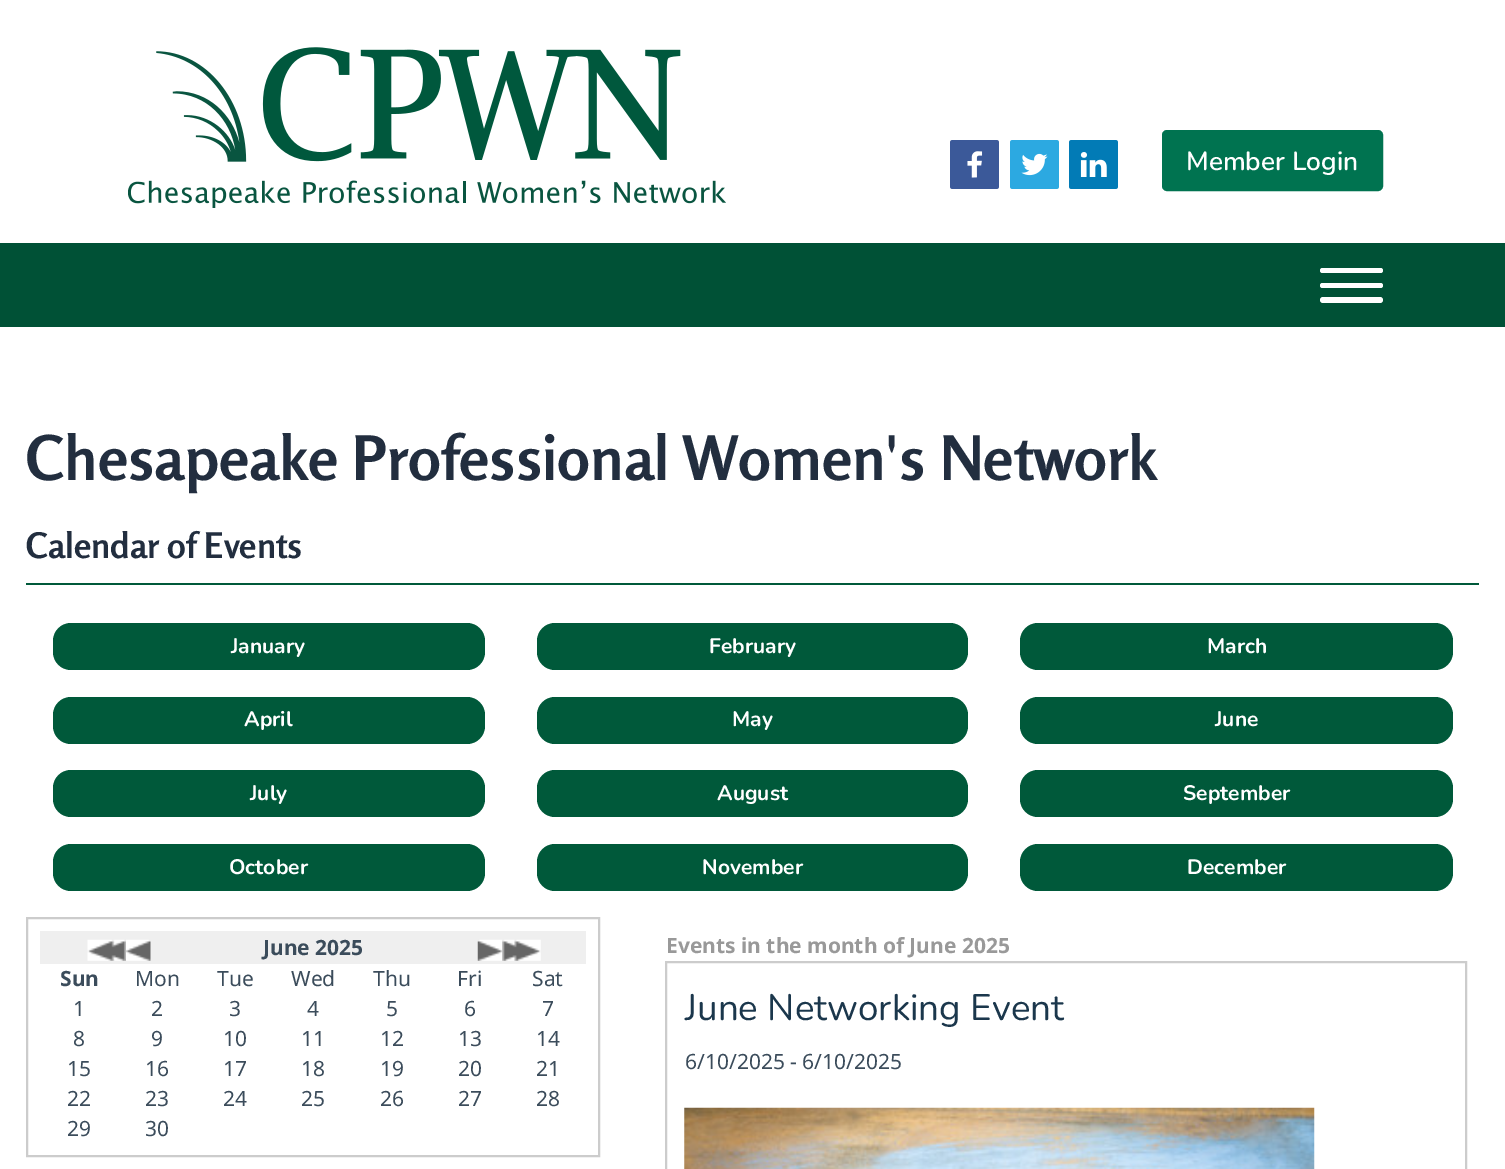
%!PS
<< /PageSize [1505 1169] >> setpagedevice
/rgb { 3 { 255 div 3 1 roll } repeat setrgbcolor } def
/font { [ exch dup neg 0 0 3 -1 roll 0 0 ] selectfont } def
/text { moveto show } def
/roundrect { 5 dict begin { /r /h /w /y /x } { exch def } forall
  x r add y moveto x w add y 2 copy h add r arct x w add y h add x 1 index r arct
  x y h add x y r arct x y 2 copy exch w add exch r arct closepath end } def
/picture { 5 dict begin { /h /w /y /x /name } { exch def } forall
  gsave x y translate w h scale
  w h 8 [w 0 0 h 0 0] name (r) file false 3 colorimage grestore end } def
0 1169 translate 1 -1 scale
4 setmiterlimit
255 255 255 rgb
0 0 1505 1169 rectfill
(img_01.rgb) 128 47 598 161 picture
(img_02.rgb) 950 140 49 49 picture
(img_03.rgb) 1010 140 49 49 picture
(img_04.rgb) 1069 140 49 49 picture
0 115 80 rgb
1163 131 219 59 4 roundrect gsave fill grestore
2 setlinewidth
stroke
0 81 54 rgb
0 243 1505 84 rectfill
255 255 255 rgb
1320 268 63 5 2.5 roundrect fill
1320 283 63 5 2.5 roundrect fill
1320 297 63 6 3 roundrect fill
0 89 58 rgb
26 583 1453 2 rectfill
53 623 432 47 18 roundrect fill
537 623 431 47 18 roundrect fill
1020 623 433 47 18 roundrect fill
53 697 432 47 18 roundrect fill
537 697 431 47 18 roundrect fill
1020 697 433 47 18 roundrect fill
53 770 432 47 18 roundrect fill
537 770 431 47 18 roundrect fill
1020 770 433 47 18 roundrect fill
53 844 432 47 18 roundrect fill
537 844 431 47 18 roundrect fill
1020 844 433 47 18 roundrect fill
204 204 204 rgb
27 918 572 238 rectstroke
239 239 239 rgb
40 931 546 33 rectfill
(img_05.rgb) 87 939 39 22 picture
(img_06.rgb) 126 939 25 22 picture
(img_07.rgb) 477 939 26 22 picture
(img_08.rgb) 502 939 39 22 picture
204 204 204 rgb
666 962 800 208 rectstroke
(img_09.rgb) 684 1107 631 62 picture
/Nunito-SemiBold 26.25 font
255 255 255 rgb
(Member Login) 1186 170 text
/Rosario-Bold 61.25 font
34 46 63 rgb
(Chesapeake Professional Women's Network) 26 480 text
/Rosario-Bold 35 font
(Calendar of Events) 26 558 text
/Nunito-Bold 21 font
255 255 255 rgb
(January) 231 653 text
(February) 709 653 text
(March) 1207 653 text
(April) 244 726 text
(May) 732 726 text
(June) 1215 726 text
(July) 250 800 text
(August) 717 800 text
(September) 1183 800 text
(October) 229 874 text
(November) 702 874 text
(December) 1187 874 text
/NotoSans-Bold 21 font
59 76 91 rgb
(June 2025) 263 955 text
(Sun) 60 986 text
/NotoSans-Regular 21 font
(Mon) 135 986 text
(Tue) 217 986 text
(Wed) 291 986 text
(Thu) 373 986 text
(Fri) 457 986 text
(Sat) 532 986 text
(1) 73 1016 text
(2) 151 1016 text
(3) 229 1016 text
(4) 307 1016 text
(5) 386 1016 text
(6) 464 1016 text
(7) 542 1016 text
(8) 73 1046 text
(9) 151 1046 text
(10) 223 1046 text
(11) 301 1046 text
(12) 380 1046 text
(13) 458 1046 text
(14) 536 1046 text
(15) 67 1076 text
(16) 145 1076 text
(17) 223 1076 text
(18) 301 1076 text
(19) 380 1076 text
(20) 458 1076 text
(21) 536 1076 text
(22) 67 1106 text
(23) 145 1106 text
(24) 223 1106 text
(25) 301 1106 text
(26) 380 1106 text
(27) 458 1106 text
(28) 536 1106 text
(29) 67 1136 text
(30) 145 1136 text
/NotoSans-Bold 21 font
153 153 153 rgb
(Events in the month of June 2025) 666 953 text
/Nunito-Regular 36.75 font
27 55 76 rgb
(June Networking Event) 685 1020 text
/NotoSans-Regular 21 font
59 76 91 rgb
(6/10/2025 - 6/10/2025) 685 1069 text
showpage
